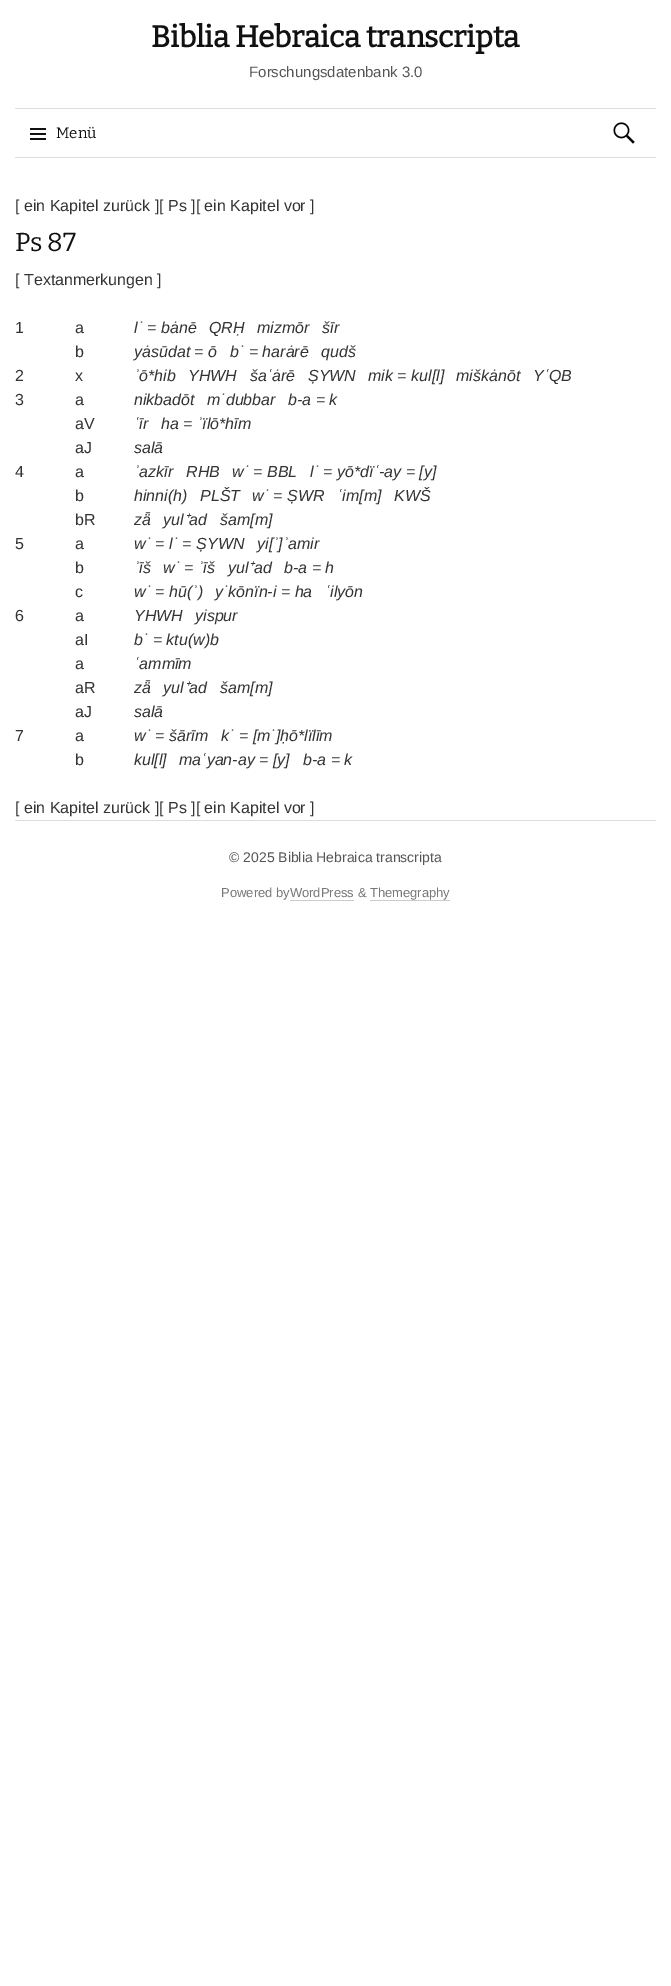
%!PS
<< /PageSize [671 1986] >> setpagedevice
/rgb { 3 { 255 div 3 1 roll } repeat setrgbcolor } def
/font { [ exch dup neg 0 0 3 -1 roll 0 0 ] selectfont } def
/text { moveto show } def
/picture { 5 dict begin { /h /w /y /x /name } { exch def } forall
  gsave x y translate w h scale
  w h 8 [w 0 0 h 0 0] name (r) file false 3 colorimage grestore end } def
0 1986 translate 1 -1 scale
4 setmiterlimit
255 255 255 rgb
0 0 671 1986 rectfill
221 221 221 rgb
15 157 641 1 rectfill
15 108 641 1 rectfill
(img_01.rgb) 30 128 16 12 picture
(img_02.rgb) 613 122 22 22 picture
15 820 641 1 rectfill
204 204 204 rgb
290 900 64 1 rectfill
370 900 80 1 rectfill
/Bitter-Bold 30 font
17 17 17 rgb
151 47 moveto -0.3 0 (Biblia Hebraica transcripta) ashow
/LiberationSans-Regular 15 font
85 85 85 rgb
(Forschungsdatenbank 3.0) 249 77 text
/Bitter-Thin 15 font
17 17 17 rgb
(Menü) 56 138 text
/LiberationSans-Regular 16 font
51 51 51 rgb
([ ein Kapitel zurück ][ Ps ][ ein Kapitel vor ]) 15 211 text
/Bitter-Thin 26 font
17 17 17 rgb
15 251 moveto -0.25 0 (Ps 87) ashow
/LiberationSans-Regular 16 font
51 51 51 rgb
([ Textanmerkungen ]) 15 285 text
(1) 15 333 text
(a) 75 333 text
/LiberationSans-Italic 16 font
(l˙ = bȧnē) 134 333 text
(QRḤ) 209 333 text
(mizmōr) 257 333 text
(šīr) 322 333 text
/LiberationSans-Regular 16 font
(b) 75 357 text
/LiberationSans-Italic 16 font
(yȧsūdat = ō) 134 357 text
(b˙ = harȧrē) 230 357 text
(qudš) 321 357 text
/LiberationSans-Regular 16 font
(2) 15 381 text
(x) 75 381 text
/LiberationSans-Italic 16 font
(ʾō*hib) 134 381 text
(YHWH) 188 381 text
(šaʿȧrē) 250 381 text
(ṢYWN) 308 381 text
(mik = kul[l]) 368 381 text
(miškȧnōt) 456 381 text
(YʿQB) 533 381 text
/LiberationSans-Regular 16 font
(3) 15 405 text
(a) 75 405 text
/LiberationSans-Italic 16 font
(nikbadōt) 134 405 text
(m˙dubbar) 207 405 text
(b-a = k) 288 405 text
/LiberationSans-Regular 16 font
(aV) 75 429 text
/LiberationSans-Italic 16 font
(ʿīr) 134 429 text
(ha = ʾïlō*hīm) 161 429 text
/LiberationSans-Regular 16 font
(aJ) 75 453 text
/LiberationSans-Italic 16 font
(salā) 134 453 text
/LiberationSans-Regular 16 font
(4) 15 477 text
(a) 75 477 text
/LiberationSans-Italic 16 font
(ʾazkīr) 134 477 text
(RHB) 186 477 text
(w˙ = BBL) 232 477 text
(l˙ = yō*dïʿ-ay = [y]) 310 477 text
/LiberationSans-Regular 16 font
(b) 75 501 text
/LiberationSans-Italic 16 font
(hinni\(h\)) 134 501 text
(PLŠT) 200 501 text
(w˙ = ṢWR) 252 501 text
(ʿim[m]) 337 501 text
(KWŠ) 394 501 text
/LiberationSans-Regular 16 font
(bR) 75 525 text
/LiberationSans-Italic 16 font
(zǟ) 134 525 text
(yul) 163 525 text
/NotoSans-Italic 16 font
(⁺) 184 525 text
/LiberationSans-Italic 16 font
(ad) 189 525 text
(šam[m]) 220 525 text
/LiberationSans-Regular 16 font
(5) 15 549 text
(a) 75 549 text
/LiberationSans-Italic 16 font
(w˙ = l˙ = ṢYWN) 134 549 text
(yi[ʾ]ʾamir) 257 549 text
/LiberationSans-Regular 16 font
(b) 75 573 text
/LiberationSans-Italic 16 font
(ʾīš) 134 573 text
(w˙ = ʾīš) 163 573 text
(yul) 228 573 text
/NotoSans-Italic 16 font
(⁺) 248 573 text
/LiberationSans-Italic 16 font
(ad) 254 573 text
(b-a = h) 284 573 text
/LiberationSans-Regular 16 font
(c) 75 597 text
/LiberationSans-Italic 16 font
(w˙ = hū\(ʾ\)) 134 597 text
(y˙kōnïn-i = ha) 215 597 text
(ʿilyōn) 325 597 text
/LiberationSans-Regular 16 font
(6) 15 621 text
(a) 75 621 text
/LiberationSans-Italic 16 font
(YHWH) 134 621 text
(yispur) 195 621 text
/LiberationSans-Regular 16 font
(aI) 75 645 text
/LiberationSans-Italic 16 font
(b˙ = ktu\(w\)b) 134 645 text
/LiberationSans-Regular 16 font
(a) 75 669 text
/LiberationSans-Italic 16 font
(ʿammīm) 134 669 text
/LiberationSans-Regular 16 font
(aR) 75 693 text
/LiberationSans-Italic 16 font
(zǟ) 134 693 text
(yul) 163 693 text
/NotoSans-Italic 16 font
(⁺) 184 693 text
/LiberationSans-Italic 16 font
(ad) 189 693 text
(šam[m]) 220 693 text
/LiberationSans-Regular 16 font
(aJ) 75 717 text
/LiberationSans-Italic 16 font
(salā) 134 717 text
/LiberationSans-Regular 16 font
(7) 15 741 text
(a) 75 741 text
/LiberationSans-Italic 16 font
(w˙ = šārīm) 134 741 text
(k˙ = [m˙]ḥō*lïlīm) 221 741 text
/LiberationSans-Regular 16 font
(b) 75 765 text
/LiberationSans-Italic 16 font
(kul[l]) 134 765 text
(maʿyan-ay = [y]) 179 765 text
(b-a = k) 303 765 text
/LiberationSans-Regular 16 font
([ ein Kapitel zurück ][ Ps ][ ein Kapitel vor ]) 15 813 text
/LiberationSans-Regular 14 font
85 85 85 rgb
(© 2025 Biblia Hebraica transcripta) 229 862 text
/LiberationSans-Regular 13 font
119 119 119 rgb
(Powered byWordPress & Themegraphy) 221 897 text
showpage
